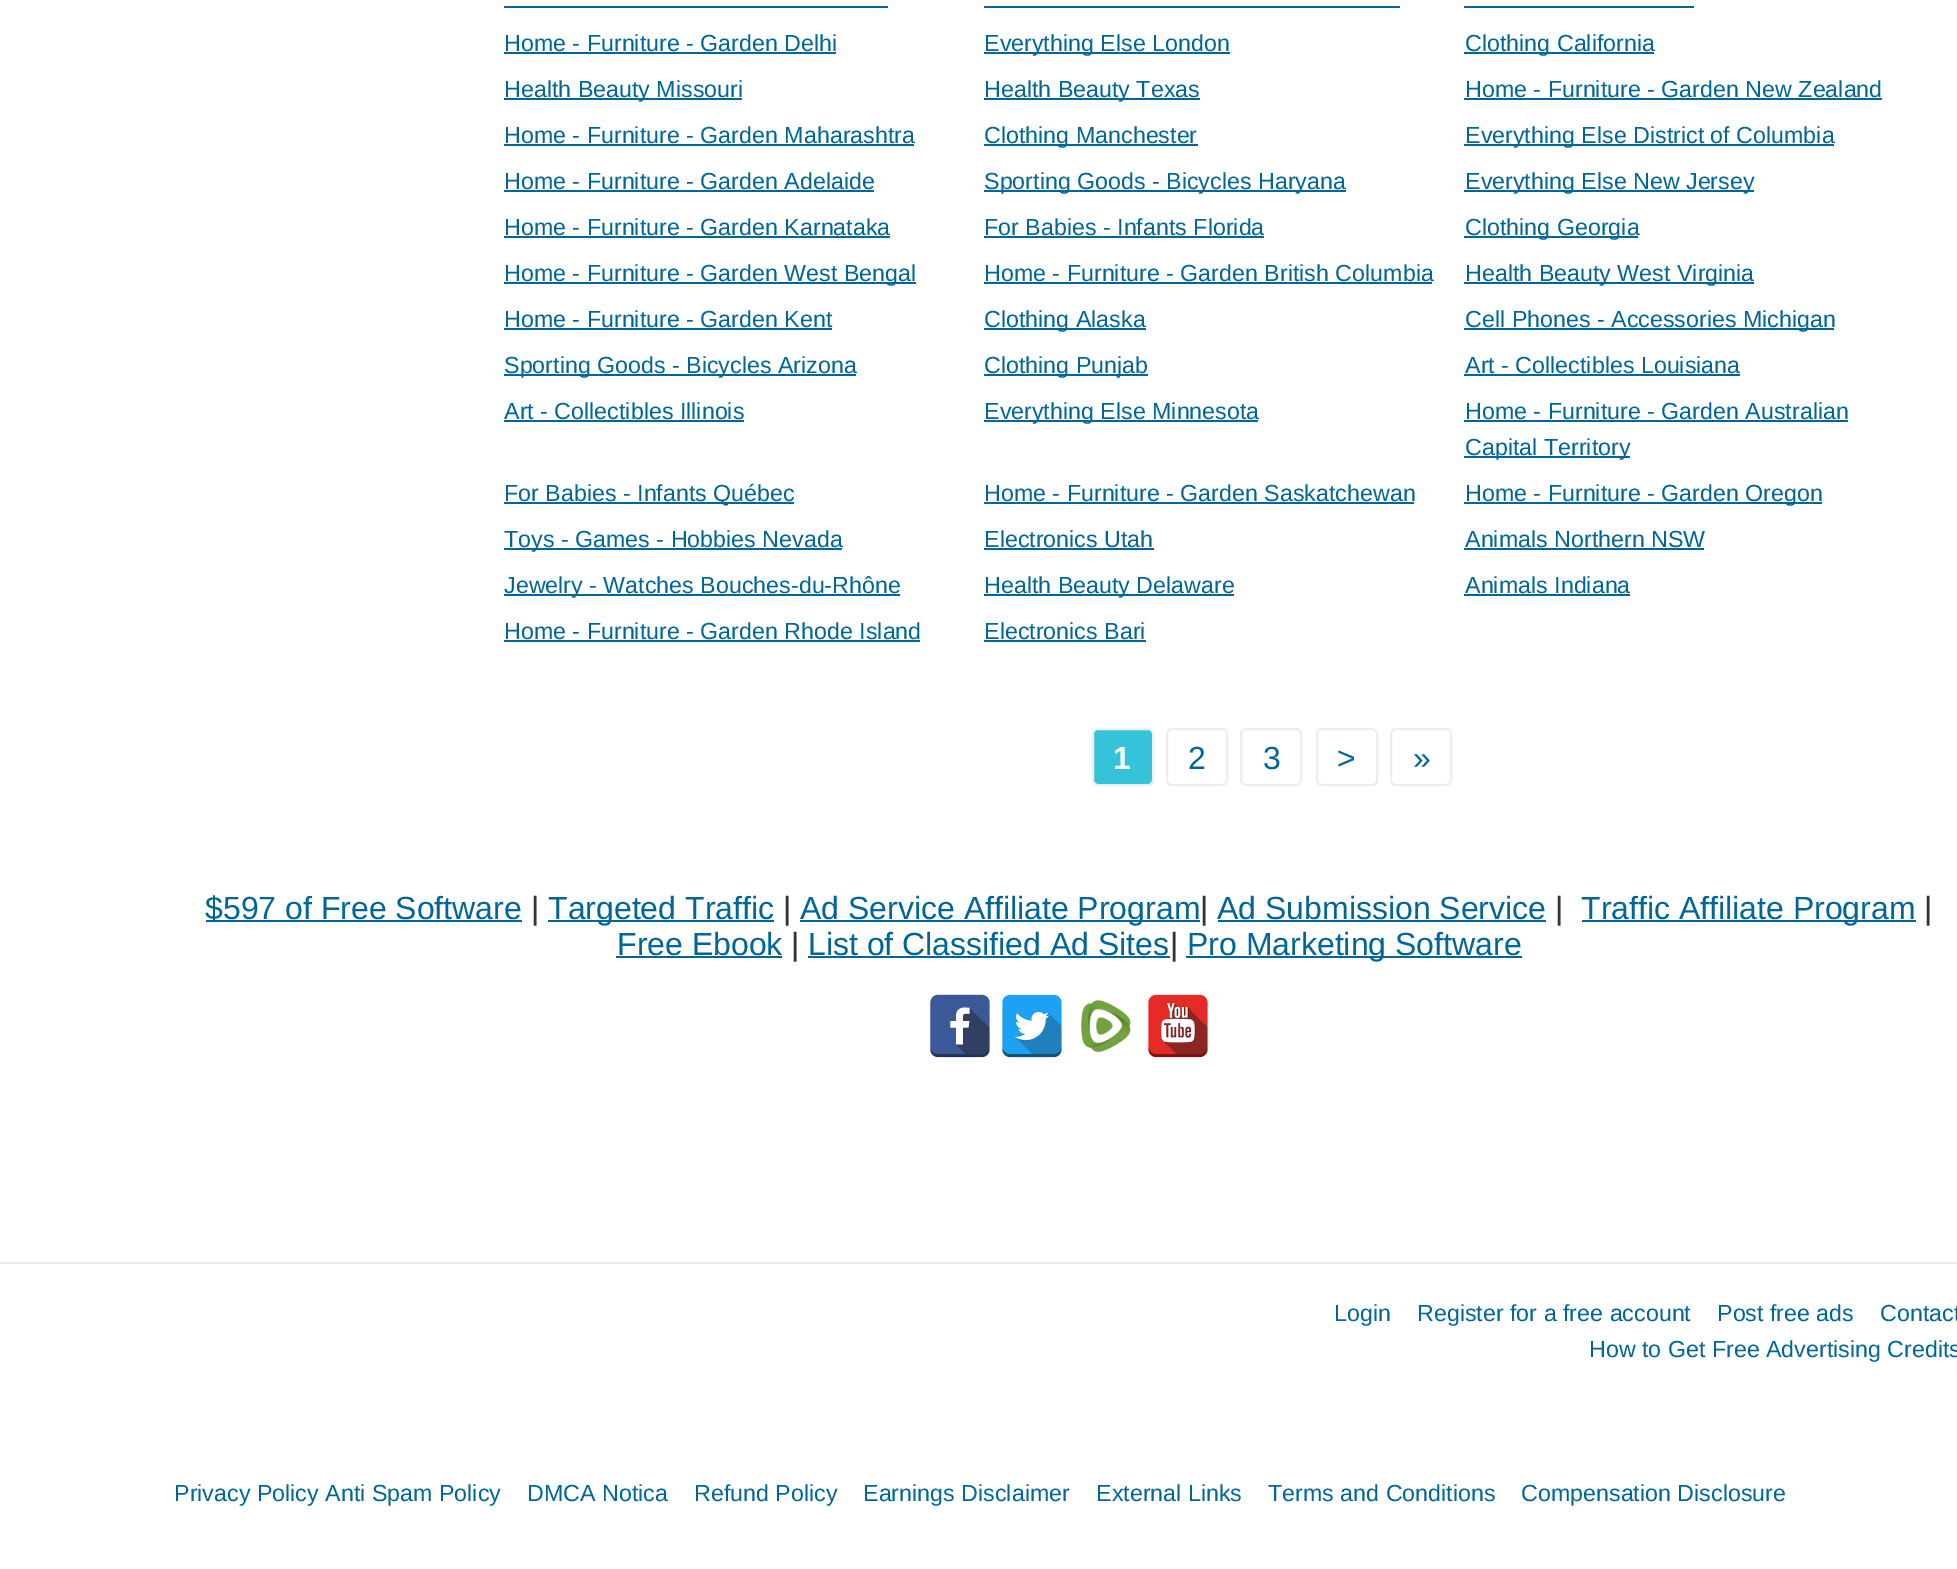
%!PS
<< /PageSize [1957 1569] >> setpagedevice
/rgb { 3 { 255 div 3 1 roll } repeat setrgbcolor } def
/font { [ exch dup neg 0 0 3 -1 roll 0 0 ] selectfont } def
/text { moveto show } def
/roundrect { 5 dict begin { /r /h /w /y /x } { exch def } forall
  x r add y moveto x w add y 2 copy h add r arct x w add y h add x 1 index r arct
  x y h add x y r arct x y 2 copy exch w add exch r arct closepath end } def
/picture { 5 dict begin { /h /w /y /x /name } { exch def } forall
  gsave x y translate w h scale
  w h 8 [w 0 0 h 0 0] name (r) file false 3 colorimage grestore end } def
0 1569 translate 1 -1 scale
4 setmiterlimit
255 255 255 rgb
0 0 1957 1569 rectfill
0 102 153 rgb
504 6 384 2 rectfill
984 6 416 2 rectfill
1464 6 230 2 rectfill
504 52 332 2 rectfill
984 52 246 2 rectfill
1464 52 190 2 rectfill
504 98 238 2 rectfill
984 98 216 2 rectfill
1464 98 418 2 rectfill
504 144 410 2 rectfill
984 144 214 2 rectfill
1464 144 370 2 rectfill
504 190 370 2 rectfill
984 190 362 2 rectfill
1464 190 290 2 rectfill
504 236 386 2 rectfill
984 236 280 2 rectfill
1464 236 174 2 rectfill
504 282 412 2 rectfill
984 282 448 2 rectfill
1464 282 290 2 rectfill
504 328 328 2 rectfill
984 328 162 2 rectfill
1464 328 370 2 rectfill
504 374 352 2 rectfill
984 374 164 2 rectfill
1464 374 276 2 rectfill
504 420 240 2 rectfill
984 420 274 2 rectfill
1464 420 384 2 rectfill
1464 456 166 2 rectfill
504 502 290 2 rectfill
984 502 430 2 rectfill
1464 502 358 2 rectfill
504 548 338 2 rectfill
984 548 170 2 rectfill
1464 548 240 2 rectfill
504 594 396 2 rectfill
984 594 250 2 rectfill
1464 594 166 2 rectfill
504 640 416 2 rectfill
984 640 162 2 rectfill
53 195 217 rgb
1093 729 60 56 5 roundrect gsave fill grestore
238 238 238 rgb
2 setlinewidth
stroke
1167 729 60 56 5 roundrect stroke
1241 729 60 56 5 roundrect stroke
1317 729 60 56 5 roundrect stroke
1391 729 60 56 5 roundrect stroke
0 102 153 rgb
206 920 316 2 rectfill
548 920 226 2 rectfill
800 920 400 2 rectfill
1218 920 328 2 rectfill
1582 920 334 2 rectfill
616 956 166 2 rectfill
808 956 362 2 rectfill
1186 956 336 2 rectfill
(img_01.rgb) 930 994 60 64 picture
(img_02.rgb) 1002 994 60 64 picture
(img_03.rgb) 1080 1000 52 52 picture
(img_04.rgb) 1148 994 60 64 picture
234 234 234 rgb
0 1262 1957 2 rectfill
/LiberationSans-Regular 23.25 font
0 102 153 rgb
(Home - Furniture - Garden Delhi) 504 51 text
(Everything Else London) 984 51 text
(Clothing California) 1465 51 text
(Health Beauty Missouri) 504 97 text
(Health Beauty Texas) 984 97 text
(Home - Furniture - Garden New Zealand) 1465 97 text
(Home - Furniture - Garden Maharashtra) 504 143 text
(Clothing Manchester) 984 143 text
(Everything Else District of Columbia) 1465 143 text
(Home - Furniture - Garden Adelaide) 504 189 text
(Sporting Goods - Bicycles Haryana) 984 189 text
(Everything Else New Jersey) 1465 189 text
(Home - Furniture - Garden Karnataka) 504 235 text
(For Babies - Infants Florida) 984 235 text
(Clothing Georgia) 1465 235 text
(Home - Furniture - Garden West Bengal) 504 281 text
(Home - Furniture - Garden British Columbia) 984 281 text
(Health Beauty West Virginia) 1465 281 text
(Home - Furniture - Garden Kent) 504 327 text
(Clothing Alaska) 984 327 text
(Cell Phones - Accessories Michigan) 1465 327 text
(Sporting Goods - Bicycles Arizona) 504 373 text
(Clothing Punjab) 984 373 text
(Art - Collectibles Louisiana) 1465 373 text
(Art - Collectibles Illinois) 504 419 text
(Everything Else Minnesota) 984 419 text
(Home - Furniture - Garden Australian) 1465 419 text
(Capital Territory) 1465 455 text
(For Babies - Infants Québec) 504 501 text
(Home - Furniture - Garden Saskatchewan) 984 501 text
(Home - Furniture - Garden Oregon) 1465 501 text
(Toys - Games - Hobbies Nevada) 504 547 text
(Electronics Utah) 984 547 text
(Animals Northern NSW) 1465 547 text
(Jewelry - Watches Bouches-du-Rhône) 504 593 text
(Health Beauty Delaware) 984 593 text
(Animals Indiana) 1465 593 text
(Home - Furniture - Garden Rhode Island) 504 639 text
(Electronics Bari) 984 639 text
/LiberationSans-Bold 32 font
255 255 255 rgb
(1) 1113 769 text
/LiberationSans-Regular 32 font
0 102 153 rgb
(2) 1188 769 text
(3) 1263 769 text
(>) 1337 769 text
(») 1413 769 text
($597 of Free Software) 205 919 text
51 51 51 rgb
(|) 531 919 text
0 102 153 rgb
(Targeted Traffic) 548 919 text
51 51 51 rgb
(|) 783 919 text
0 102 153 rgb
(Ad Service Affiliate Program) 800 919 text
51 51 51 rgb
(|) 1200 919 text
0 102 153 rgb
(Ad Submission Service) 1217 919 text
51 51 51 rgb
(|) 1555 919 text
0 102 153 rgb
(Traffic Affiliate Program) 1581 919 text
51 51 51 rgb
(|) 1924 919 text
0 102 153 rgb
(Free Ebook) 617 955 text
51 51 51 rgb
(|) 791 955 text
0 102 153 rgb
(List of Classified Ad Sites) 808 955 text
51 51 51 rgb
(|) 1170 955 text
0 102 153 rgb
(Pro Marketing Software) 1187 955 text
/LiberationSans-Regular 23.25 font
(Login) 1334 1321 text
(Register for a free account) 1417 1321 text
(Post free ads) 1717 1321 text
(Contact) 1880 1321 text
(How to Get Free Advertising Credits) 1589 1357 text
(Privacy Policy Anti Spam Policy) 174 1501 text
(DMCA Notica) 527 1501 text
(Refund Policy) 694 1501 text
(Earnings Disclaimer) 863 1501 text
(External Links) 1096 1501 text
(Terms and Conditions) 1268 1501 text
(Compensation Disclosure) 1521 1501 text
showpage
